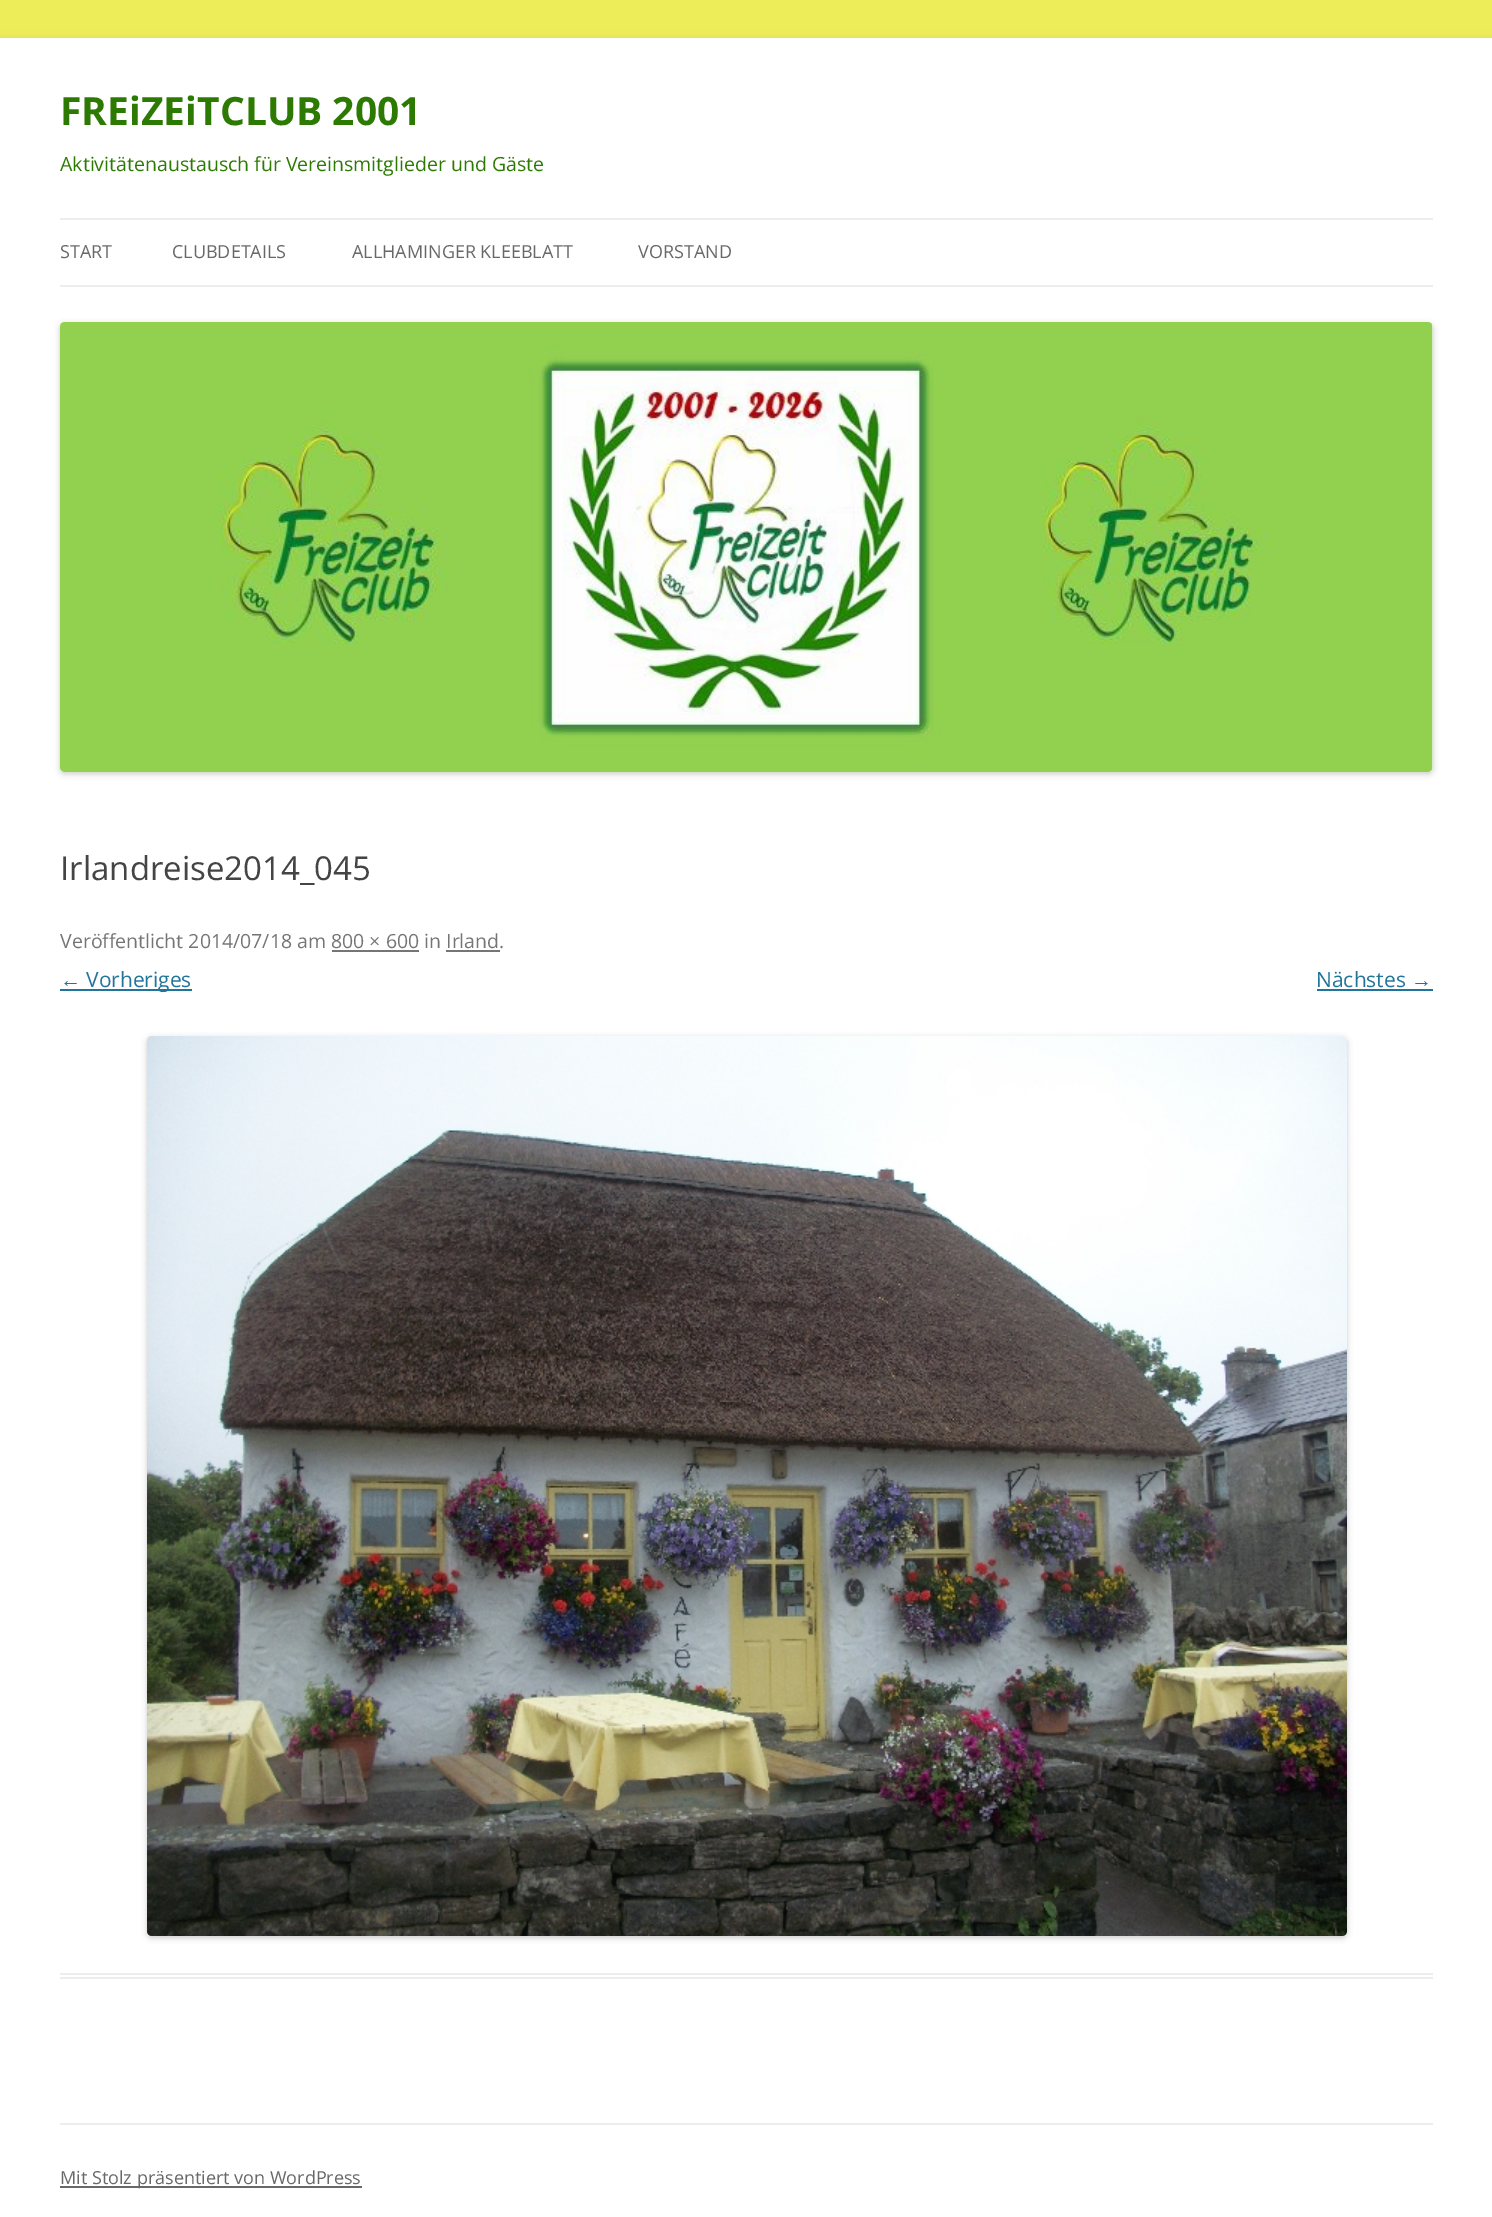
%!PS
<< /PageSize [1492 2217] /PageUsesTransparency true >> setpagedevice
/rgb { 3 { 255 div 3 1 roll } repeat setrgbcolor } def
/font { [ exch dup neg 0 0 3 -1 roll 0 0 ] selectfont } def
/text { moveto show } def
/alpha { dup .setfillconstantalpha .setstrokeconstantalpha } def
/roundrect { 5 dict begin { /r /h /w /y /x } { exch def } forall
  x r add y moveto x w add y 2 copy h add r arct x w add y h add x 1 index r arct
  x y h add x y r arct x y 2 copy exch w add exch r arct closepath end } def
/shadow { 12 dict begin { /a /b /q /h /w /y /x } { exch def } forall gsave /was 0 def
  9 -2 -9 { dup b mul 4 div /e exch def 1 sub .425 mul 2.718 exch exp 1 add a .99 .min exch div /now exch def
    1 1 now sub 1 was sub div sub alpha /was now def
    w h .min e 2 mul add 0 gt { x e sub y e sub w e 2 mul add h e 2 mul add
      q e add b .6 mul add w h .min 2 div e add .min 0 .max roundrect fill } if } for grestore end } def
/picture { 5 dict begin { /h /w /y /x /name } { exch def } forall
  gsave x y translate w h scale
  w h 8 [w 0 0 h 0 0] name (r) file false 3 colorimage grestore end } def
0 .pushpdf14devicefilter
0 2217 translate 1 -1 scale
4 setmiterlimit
237 237 90 rgb
0 0 1492 2217 rectfill
100 100 100 rgb
0 41 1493 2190 0 4.5 0.3 shadow
255 255 255 rgb
0 38 1492 2179 rectfill
237 237 237 rgb
60 218 1373 2 rectfill
60 285 1373 2 rectfill
0 0 0 rgb
60 324 1373 450 5 3 0.2 shadow
(img_01.rgb) 60 322 1373 450 picture
237 237 237 rgb
60 1973 1373 2 rectfill
60 1977 1373 2 rectfill
117 117 117 rgb
332 950 87 2 rectfill
446 950 54 2 rectfill
33 117 155 rgb
60 989 132 2 rectfill
1317 989 116 2 rectfill
0 0 0 rgb
147 1038 1200 900 5 3 0.2 shadow
(img_02.rgb) 147 1036 1200 900 picture
237 237 237 rgb
60 2123 1373 2 rectfill
104 104 104 rgb
60 2186 302 2 rectfill
/OpenSans-Bold 39 font
45 122 3 rgb
(FREiZEiTCLUB 2001) 60 125 text
/OpenSans-Regular 19.5 font
(Aktivitätenaustausch für Vereinsmitglieder und Gäste) 60 171 text
/OpenSans-Regular 18 font
104 104 104 rgb
(START) 60 258 text
(CLUBDETAILS) 172 258 text
(ALLHAMINGER KLEEBLATT) 352 258 text
(VORSTAND) 638 258 text
/OpenSans-Regular 33 font
68 68 68 rgb
(Irlandreise2014_045) 60 880 text
/OpenSans-Regular 19.5 font
117 117 117 rgb
(Veröffentlicht 2014/07/18 am 800 × 600 in Irland.) 60 948 text
/LiberationSans-Regular 21 font
33 117 155 rgb
(←) 60 987 text
/OpenSans-Regular 21 font
(Vorheriges) 86 987 text
(Nächstes) 1316 987 text
/LiberationSans-Regular 21 font
(→) 1411 987 text
/OpenSans-Regular 18 font
104 104 104 rgb
(Mit Stolz präsentiert von WordPress) 60 2184 text
.poppdf14devicefilter showpage
